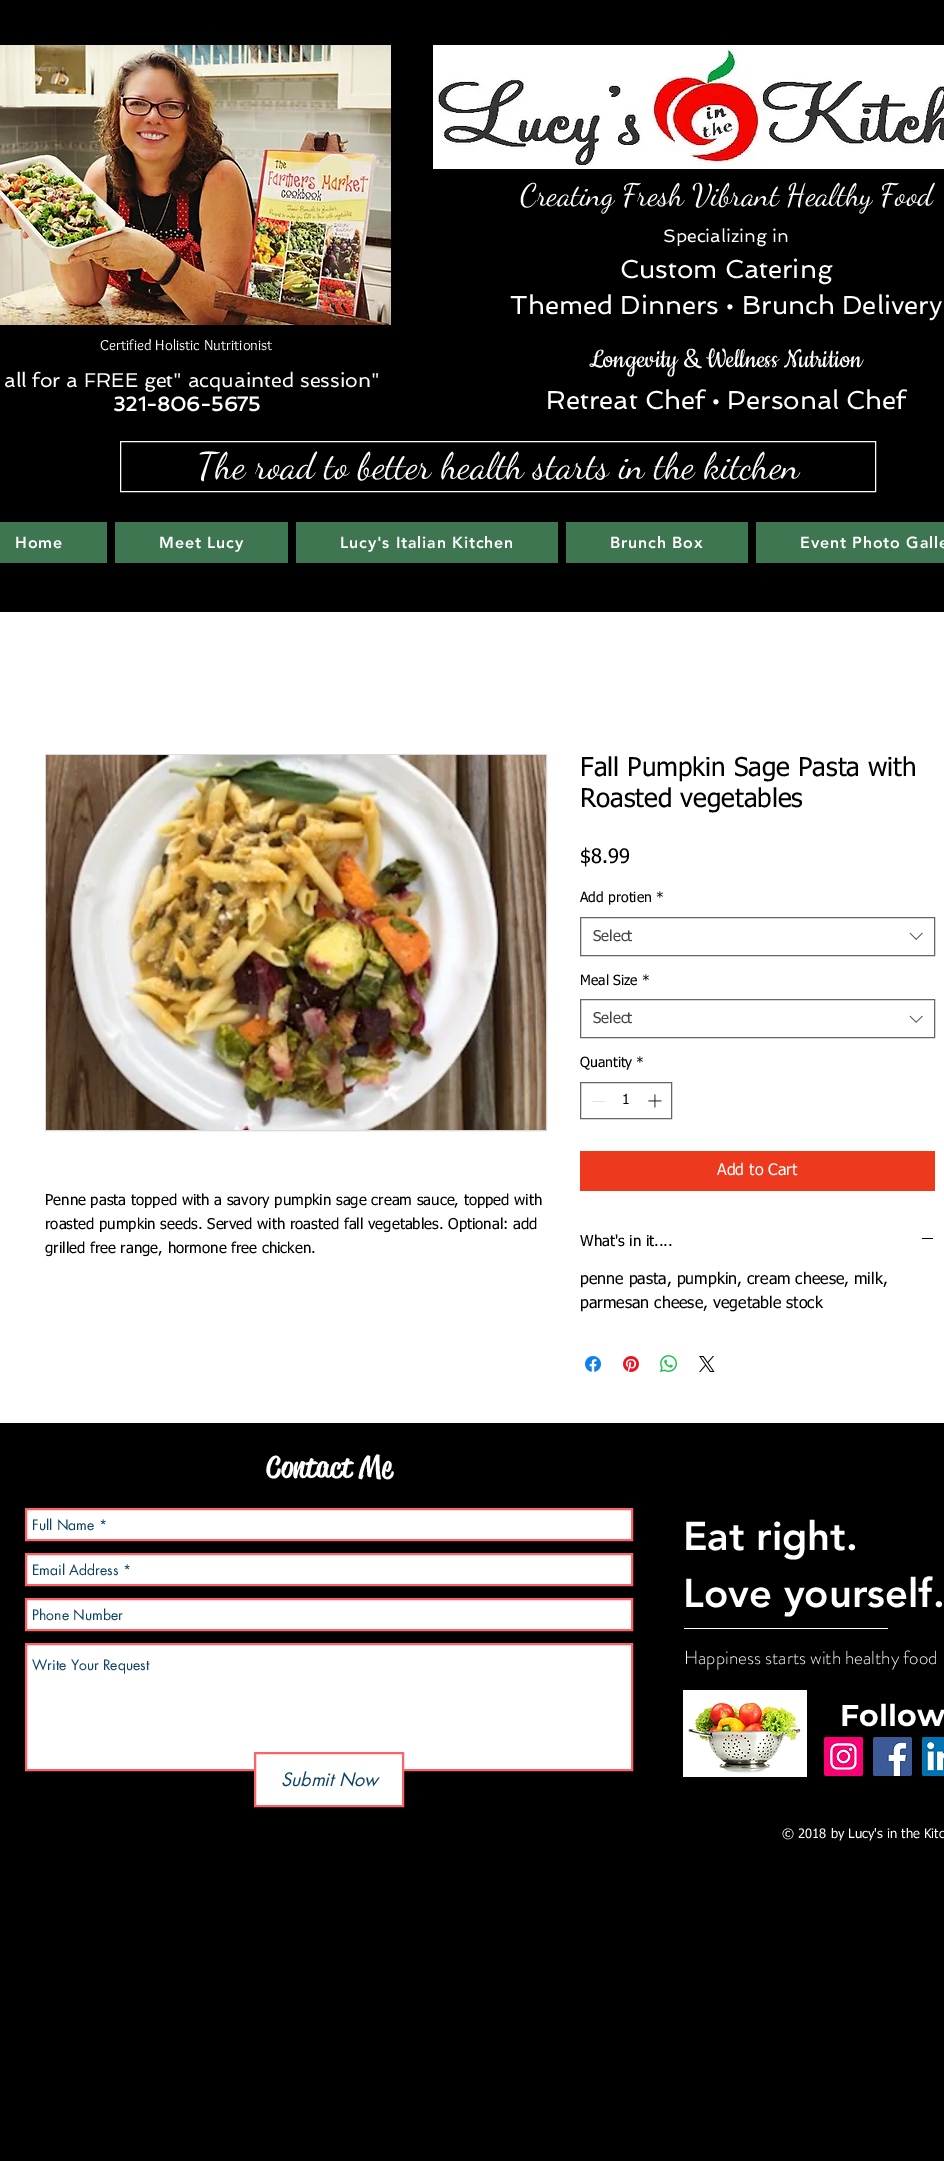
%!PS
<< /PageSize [944 2161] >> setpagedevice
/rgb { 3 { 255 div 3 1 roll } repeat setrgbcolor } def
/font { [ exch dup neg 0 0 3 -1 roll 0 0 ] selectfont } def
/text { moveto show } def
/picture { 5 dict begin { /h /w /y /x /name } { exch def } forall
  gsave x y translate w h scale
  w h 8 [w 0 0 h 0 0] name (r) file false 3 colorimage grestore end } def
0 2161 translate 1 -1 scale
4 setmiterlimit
0 0 0 rgb
0 0 944 2161 rectfill
(img_01.rgb) 0 45 391 280 picture
(img_02.rgb) 433 45 511 124 picture
255 255 255 rgb
120.5 441.5 755 50 rectstroke
63 118 82 rgb
0 522 107 41 rectfill
115 522 173 41 rectfill
296 522 262 41 rectfill
566 522 182 41 rectfill
756 522 188 41 rectfill
255 255 255 rgb
0 612 944 811 rectfill
217 217 217 rgb
45.5 754.5 501 376 rectstroke
(img_03.rgb) 46 755 500 375 picture
102 102 102 rgb
580.5 917.5 354 38 rectstroke
(img_04.rgb) 909 932 14 8 picture
580.5 999.5 354 38 rectstroke
(img_04.rgb) 909 1015 14 8 picture
580.5 1082.5 91 36 rectstroke
227 227 227 rgb
592 1101 13 1 rectfill
(img_05.rgb) 648 1094 14 14 picture
237 58 30 rgb
580 1151 355 40 rectfill
0 0 0 rgb
922 1238 11 1 rectfill
(img_06.rgb) 585 1356 16 16 picture
(img_07.rgb) 623 1356 16 16 picture
(img_08.rgb) 660 1355 17 17 picture
(img_09.rgb) 699 1356 16 16 picture
255 255 255 rgb
26 1509 moveto 606 0 rlineto 0 31 rlineto -606 0 rlineto closepath gsave fill grestore
255 97 104 rgb
2 setlinewidth
stroke
255 255 255 rgb
26 1554 moveto 606 0 rlineto 0 31 rlineto -606 0 rlineto closepath gsave fill grestore
255 97 104 rgb
stroke
255 255 255 rgb
26 1599 moveto 606 0 rlineto 0 31 rlineto -606 0 rlineto closepath gsave fill grestore
255 97 104 rgb
stroke
255 255 255 rgb
26 1644 moveto 606 0 rlineto 0 126 rlineto -606 0 rlineto closepath gsave fill grestore
255 97 104 rgb
stroke
255 255 255 rgb
256 1769 146 36 rectfill
255 97 104 rgb
255 1753 148 53 rectstroke
255 255 255 rgb
684 1628 204 1 rectfill
(img_10.rgb) 683 1690 124 87 picture
(img_11.rgb) 824 1737 39 39 picture
(img_12.rgb) 873 1737 39 39 picture
(img_13.rgb) 922 1737 22 39 picture
/DancingScript-Regular 31 font
(Creating Fresh Vibrant Healthy Food) 520 205 text
/Spinnaker-Regular 18 font
(Specializing in) 663 242 text
/Spinnaker-Regular 26 font
(Custom Catering) 620 278 text
(Themed Dinners • Brunch Delivery) 510 314 text
/Overlock-Regular 15 font
(Certified Holistic Nutritionist) 100 350 text
/Cookie-Regular 30 font
(Longevity & Wellness Nutrition) 589 367 text
/Spinnaker-Regular 20 font
(all for a FREE get" acquainted session") 4 387 text
/Spinnaker-Bold 20 font
(321-806-5675) 113 411 text
/Spinnaker-Regular 26 font
(Retreat Chef • Personal Chef) 546 409 text
/DancingScript-Regular 37 font
(The road to better health starts in the kitchen) 197 478 text
/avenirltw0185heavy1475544-Black 16 font
15 548 moveto 0.8 0 (Home) ashow
159 548 moveto 0.8 0 (Meet Lucy) ashow
340 548 moveto 0.8 0 (Lucy's Italian Kitchen) ashow
610 548 moveto 0.8 0 (Brunch Box) ashow
800 548 moveto 0.8 0 (Event Photo Galle) ashow
/tahoma-Regular 15 font
0 0 0 rgb
(Penne pasta topped with a savory pumpkin sage cream sauce, topped with) 45 1205 text
(roasted pumpkin seeds. Served with roasted fall vegetables. Optional: add) 45 1229 text
(grilled free range, hormone free chicken.) 45 1253 text
/tahoma-Regular 26 font
(Fall Pumpkin Sage Pasta with) 580 776 text
(Roasted vegetables) 580 807 text
/tahoma-Regular 20 font
($8.99) 580 863 text
/tahoma-Regular 14 font
(Add protien) 580 902 text
(*) 656 902 text
/tahoma-Regular 15 font
68 68 68 rgb
(Select) 593 941 text
/tahoma-Regular 14 font
0 0 0 rgb
(Meal Size) 580 985 text
(*) 642 985 text
/tahoma-Regular 15 font
68 68 68 rgb
(Select) 593 1023 text
/tahoma-Regular 14 font
0 0 0 rgb
(Quantity) 580 1067 text
(*) 636 1067 text
(1) 622 1104 text
/tahoma-Regular 16 font
255 255 255 rgb
(Add to Cart) 717 1175 text
/tahoma-Regular 15 font
0 0 0 rgb
(What's in it....) 580 1246 text
/tahoma-Regular 16 font
(penne pasta, pumpkin, cream cheese, milk,) 580 1284 text
(parmesan cheese, vegetable stock) 580 1308 text
/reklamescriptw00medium-Medium 30 font
255 255 255 rgb
(Contact Me) 266 1477 text
/futura-Regular 14 font
12 66 102 rgb
(Full Name *) 32 1530 text
(Email Address *) 32 1575 text
(Phone Number) 32 1620 text
(Write Your Request) 32 1670 text
/futura-Italic 18 font
(Submit Now) 281 1786 text
/avenirltw0185heavy1475544-Black 40 font
255 255 255 rgb
(Eat right.) 683 1550 text
(Love yourself.) 683 1607 text
/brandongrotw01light-Light 19 font
(Happiness starts with healthy food) 684 1664 text
/Montserrat-Bold 30 font
(Follow) 840 1726 text
/tahoma-Regular 13 font
(© 2018 by Lucy's in the Kitc) 782 1838 text
showpage
